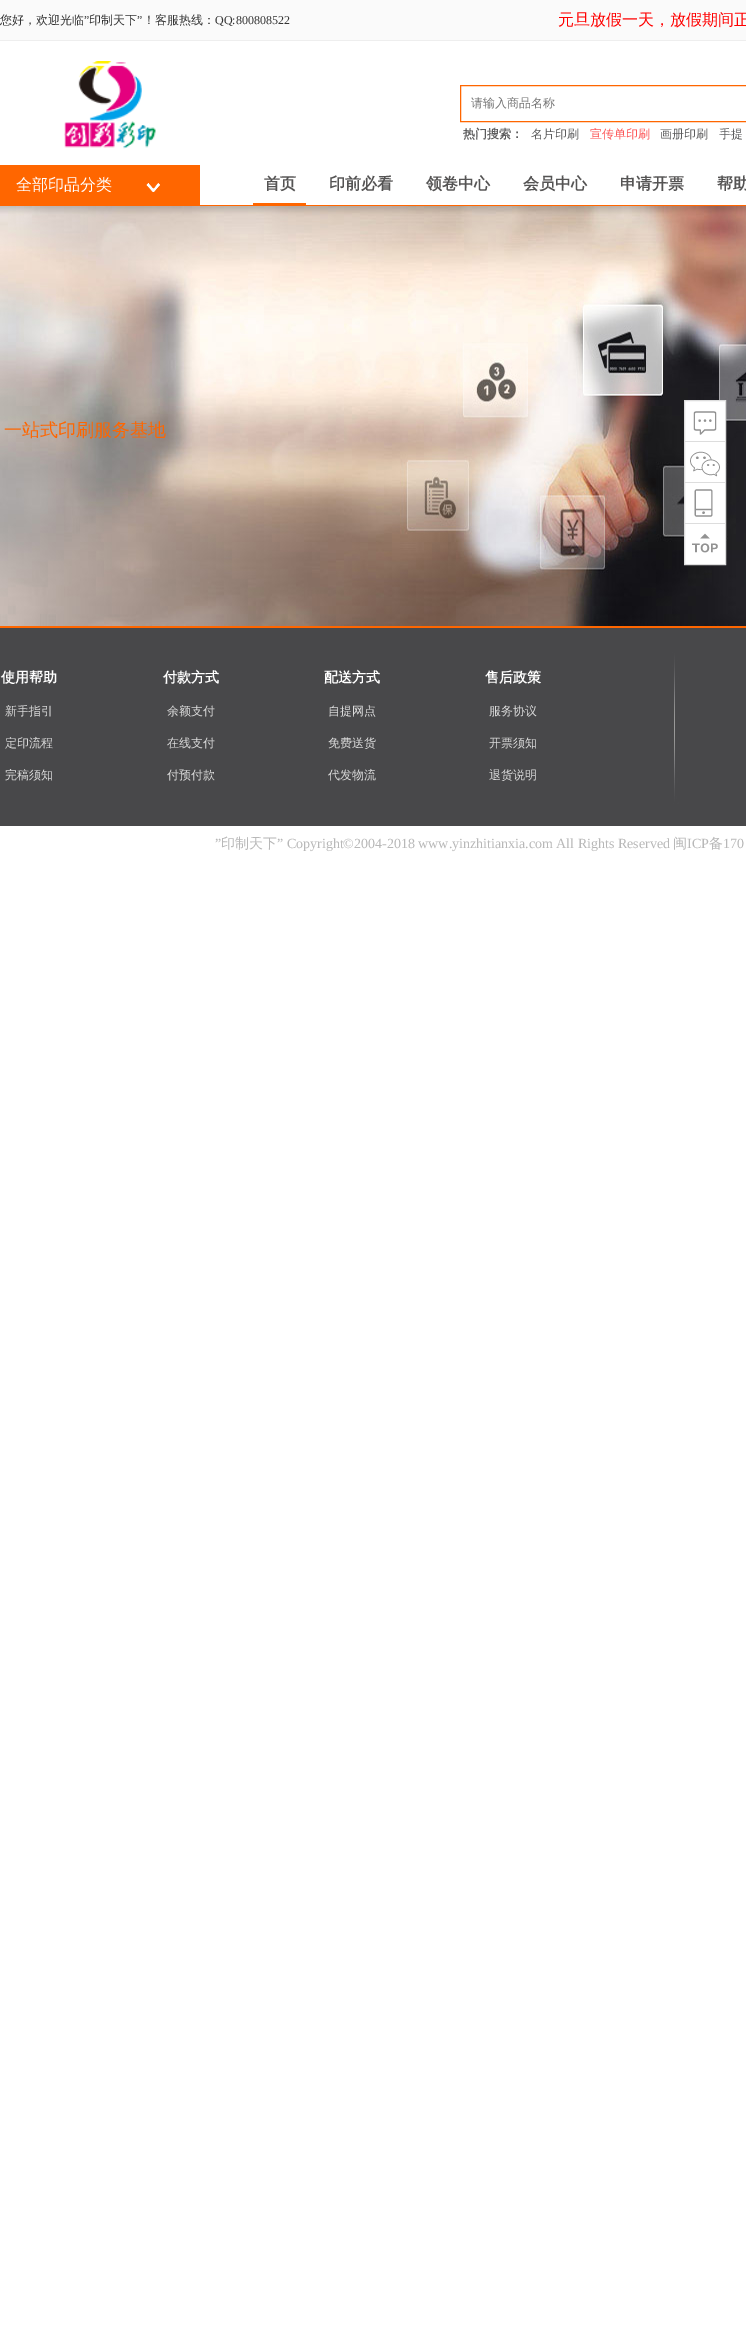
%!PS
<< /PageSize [746 2347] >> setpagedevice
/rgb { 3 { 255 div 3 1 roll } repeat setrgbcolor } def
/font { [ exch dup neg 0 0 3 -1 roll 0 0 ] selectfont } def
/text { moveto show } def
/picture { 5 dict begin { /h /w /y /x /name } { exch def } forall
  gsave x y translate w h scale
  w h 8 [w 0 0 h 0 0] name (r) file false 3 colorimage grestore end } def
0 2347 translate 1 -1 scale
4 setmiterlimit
255 255 255 rgb
0 0 746 2347 rectfill
250 250 250 rgb
0 0 746 40 rectfill
238 238 238 rgb
0 40 746 1 rectfill
(img_01.rgb) 64 61 92 88 picture
255 102 0 rgb
460.5 85.5 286 36 rectstroke
0 205 746 1 rectfill
0 165 200 40 rectfill
(img_02.rgb) 146 183 14 9 picture
253 203 53 2 rectfill
(img_03.rgb) 0 206 746 420 picture
255 255 255 rgb
684.5 400.5 moveto 41 0 rlineto 0 164 rlineto -41 0 rlineto closepath gsave fill grestore
221 221 221 rgb
stroke
(img_04.rgb) 693 411 24 24 picture
685 441 40 1 rectfill
(img_05.rgb) 690 451 30 26 picture
685 482 40 1 rectfill
(img_06.rgb) 694 489 19 28 picture
685 523 40 1 rectfill
(img_07.rgb) 692 533 26 20 picture
(img_08.rgb) 0 628 746 198 picture
255 102 0 rgb
0 626 746 2 rectfill
/WenQuanYiZenHei-Medium 12 font
51 51 51 rgb
(您好，欢迎光临) 0 24 text
/LiberationSerif-Regular 12 font
(”) 84 24 text
/WenQuanYiZenHei-Medium 12 font
(印制天下) 89 24 text
/LiberationSerif-Regular 12 font
(”) 137 24 text
/WenQuanYiZenHei-Medium 12 font
(！客服热线：) 143 24 text
/LiberationSerif-Regular 12 font
(QQ:800808522) 215 24 text
/WenQuanYiZenHei-Medium 16 font
255 0 0 rgb
558 25 moveto -1 0 32 (元旦放假一天，放假期间正) widthshow
/WenQuanYiZenHei-Medium 12 font
117 117 117 rgb
(请输入商品名称) 471 107 text
/WenQuanYiZenHei-Bold 12 font
92 92 93 rgb
(热门搜索：) 463 138 text
/WenQuanYiZenHei-Medium 12 font
(名片印刷) 531 138 text
253 84 85 rgb
(宣传单印刷) 590 138 text
92 92 93 rgb
(画册印刷) 660 138 text
(手提) 719 138 text
/WenQuanYiZenHei-Medium 16 font
255 255 255 rgb
(全部印品分类) 16 190 text
/WenQuanYiZenHei-Bold 16 font
85 84 84 rgb
(首页) 264 189 text
(印前必看) 329 189 text
(领卷中心) 426 189 text
(会员中心) 523 189 text
(申请开票) 620 189 text
(帮助) 717 189 text
/WenQuanYiZenHei-Medium 18 font
255 102 0 rgb
(一站式印刷服务基地) 4 436 text
/WenQuanYiZenHei-Bold 14 font
255 255 255 rgb
(使用帮助) 1 682 text
/WenQuanYiZenHei-Medium 12 font
219 219 219 rgb
(新手指引) 5 715 text
(定印流程) 5 747 text
(完稿须知) 5 779 text
/WenQuanYiZenHei-Bold 14 font
255 255 255 rgb
(付款方式) 163 682 text
/WenQuanYiZenHei-Medium 12 font
219 219 219 rgb
(余额支付) 167 715 text
(在线支付) 167 747 text
(付预付款) 167 779 text
/WenQuanYiZenHei-Bold 14 font
255 255 255 rgb
(配送方式) 324 682 text
/WenQuanYiZenHei-Medium 12 font
219 219 219 rgb
(自提网点) 328 715 text
(免费送货) 328 747 text
(代发物流) 328 779 text
/WenQuanYiZenHei-Bold 14 font
255 255 255 rgb
(售后政策) 485 682 text
/WenQuanYiZenHei-Medium 12 font
219 219 219 rgb
(服务协议) 489 715 text
(开票须知) 489 747 text
(退货说明) 489 779 text
/LiberationSerif-Regular 14 font
184 184 184 rgb
(”) 215 848 text
/WenQuanYiZenHei-Medium 14 font
(印制天下) 221 848 text
/LiberationSerif-Regular 14 font
(” Copyright©2004-2018 www.yinzhitianxia.com All Rights Reserved) 277 848 text
/WenQuanYiZenHei-Medium 14 font
(闽) 673 848 text
/LiberationSerif-Regular 14 font
(ICP) 687 848 text
/WenQuanYiZenHei-Medium 14 font
(备) 709 848 text
/LiberationSerif-Regular 14 font
(170) 723 848 text
showpage
